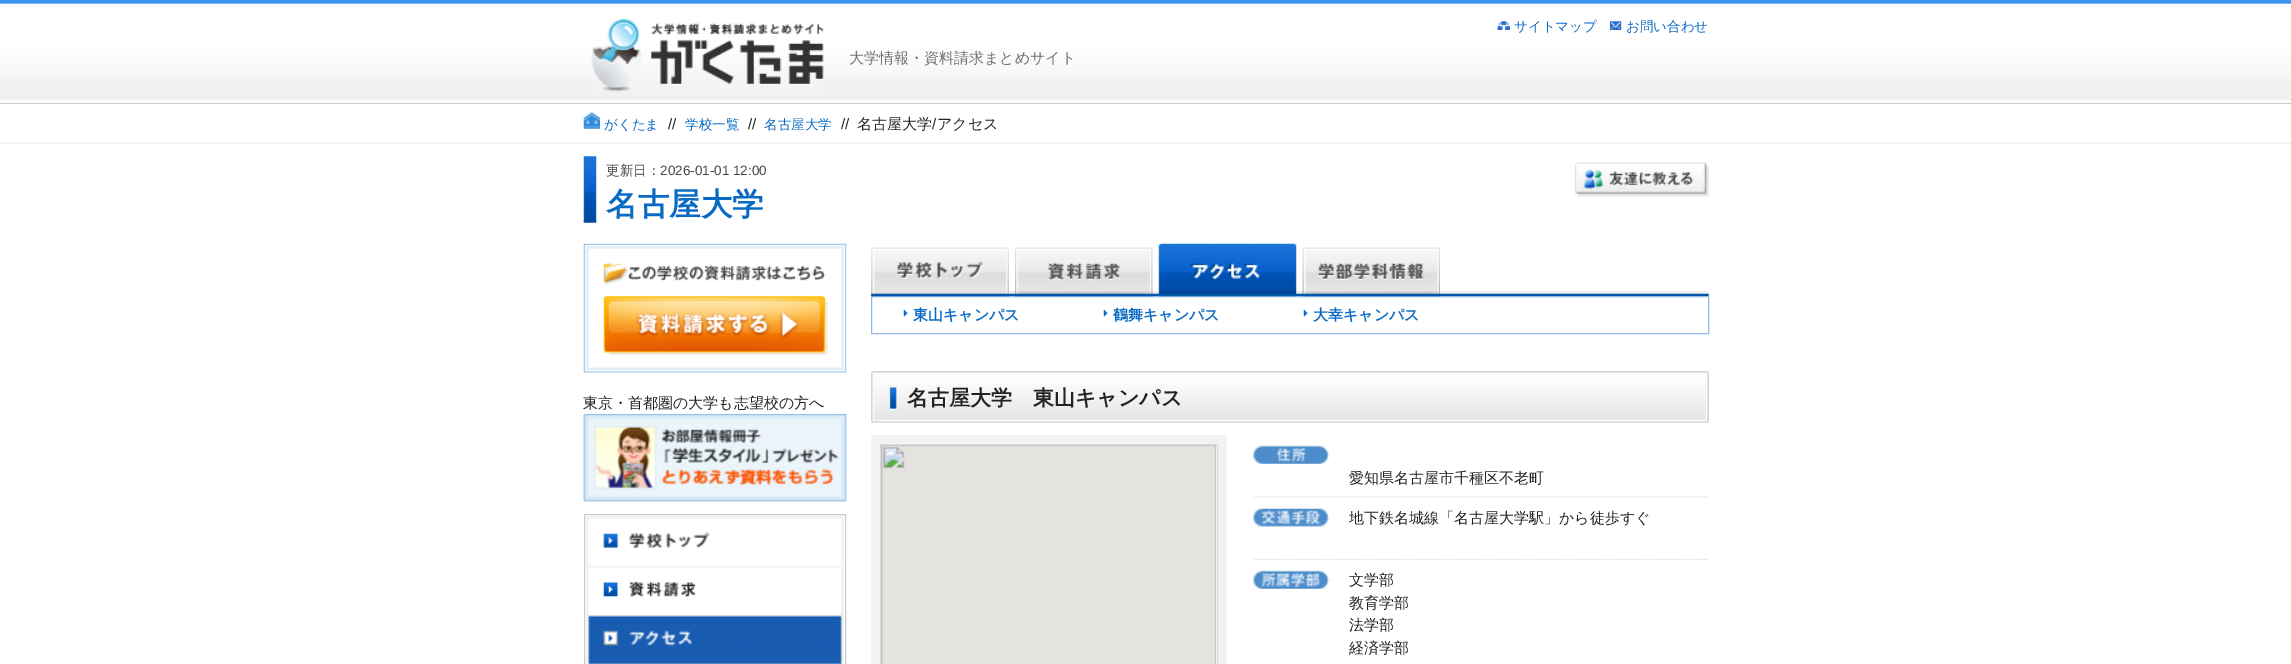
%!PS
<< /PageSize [2291 664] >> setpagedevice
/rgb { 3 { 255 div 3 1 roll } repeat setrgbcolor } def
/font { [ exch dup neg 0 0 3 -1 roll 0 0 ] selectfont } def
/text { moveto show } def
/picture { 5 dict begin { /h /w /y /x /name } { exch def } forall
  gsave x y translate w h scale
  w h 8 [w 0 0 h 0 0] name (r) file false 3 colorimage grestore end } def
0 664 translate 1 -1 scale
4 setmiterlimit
255 255 255 rgb
0 0 2291 664 rectfill
241 241 241 rgb
0 79 2291 21 rectfill
(img_01.rgb) 0 0 2291 79 picture
(img_02.rgb) 591 18 233 74 picture
(img_03.rgb) 1497 21 13 9 picture
(img_04.rgb) 1610 21 12 9 picture
203 203 203 rgb
0 103 2291 1 rectfill
(img_05.rgb) 0 142 2291 2 picture
(img_06.rgb) 583 112 17 17 picture
(img_07.rgb) 583 156 14 67 picture
(img_08.rgb) 583 221 14 2 picture
(img_09.rgb) 1575 162 134 35 picture
(img_10.rgb) 583 243 264 130 picture
(img_11.rgb) 603 296 225 59 picture
(img_12.rgb) 583 414 264 88 picture
584.5 514.5 261 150 rectstroke
242 242 242 rgb
586 516 258 148 rectfill
(img_13.rgb) 588 519 254 49 picture
(img_14.rgb) 589 567 252 49 picture
(img_15.rgb) 588 615 254 49 picture
(img_16.rgb) 871 291 838 5 picture
149 186 225 rgb
871.5 296.5 837 37 rectstroke
(img_17.rgb) 871 247 138 50 picture
(img_18.rgb) 1015 247 138 50 picture
(img_19.rgb) 1158 243 139 54 picture
(img_20.rgb) 1302 247 138 50 picture
(img_21.rgb) 903 310 5 7 picture
(img_21.rgb) 1103 310 5 7 picture
(img_21.rgb) 1303 310 5 7 picture
(img_22.rgb) 871 420 838 3 picture
229 229 229 rgb
871 371 838 49 rectfill
(img_23.rgb) 871 371 838 49 picture
(img_24.rgb) 871 435 356 229 picture
219 219 219 rgb
880.5 444.5 337 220 rectstroke
(img_25.rgb) 881 445 335 219 picture
(img_26.rgb) 1254 496 455 2 picture
(img_27.rgb) 1253 445 77 19 picture
(img_28.rgb) 1254 558 455 2 picture
(img_29.rgb) 1253 508 77 19 picture
(img_30.rgb) 1253 570 77 19 picture
/WenQuanYiZenHei-Medium 13.5 font
9 106 196 rgb
(サイトマップ) 1514 31 text
(お問い合わせ) 1626 31 text
/WenQuanYiZenHei-Medium 15 font
112 112 112 rgb
(大学情報・資料請求まとめサイト) 849 63 text
/WenQuanYiZenHei-Medium 13.5 font
9 106 196 rgb
(がくたま) 604 129 text
/LiberationSans-Regular 15 font
34 34 34 rgb
(//) 668 129 text
/WenQuanYiZenHei-Medium 13.5 font
9 106 196 rgb
(学校一覧) 685 129 text
/LiberationSans-Regular 15 font
34 34 34 rgb
(//) 748 129 text
/WenQuanYiZenHei-Medium 13.5 font
9 106 196 rgb
(名古屋大学) 764 129 text
/LiberationSans-Regular 15 font
34 34 34 rgb
(//) 841 129 text
/WenQuanYiZenHei-Medium 15 font
(名古屋大学) 857 129 text
/LiberationSans-Regular 15 font
(/) 932 129 text
/WenQuanYiZenHei-Medium 15 font
(アクセス) 937 129 text
/WenQuanYiZenHei-Medium 13.5 font
68 68 68 rgb
(更新日：) 606 175 text
/LiberationSans-Regular 13.5 font
(2026-01-01 12:00) 660 175 text
/WenQuanYiZenHei-Bold 31.5 font
9 106 196 rgb
(名古屋大学) 606 215 text
/WenQuanYiZenHei-Medium 15 font
34 34 34 rgb
(東京・首都圏の大学も志望校の方へ) 583 408 text
/WenQuanYiZenHei-Bold 15 font
9 106 196 rgb
(東山キャンパス) 913 320 text
(鶴舞キャンパス) 1113 320 text
(大幸キャンパス) 1313 320 text
/WenQuanYiZenHei-Bold 21 font
34 34 34 rgb
(名古屋大学　東山キャンパス) 907 405 text
/WenQuanYiZenHei-Medium 15 font
(愛知県名古屋市千種区不老町) 1349 483 text
(地下鉄名城線「名古屋大学駅」から徒歩すぐ) 1349 523 text
(文学部) 1349 585 text
(教育学部) 1349 608 text
(法学部) 1349 630 text
(経済学部) 1349 653 text
showpage
